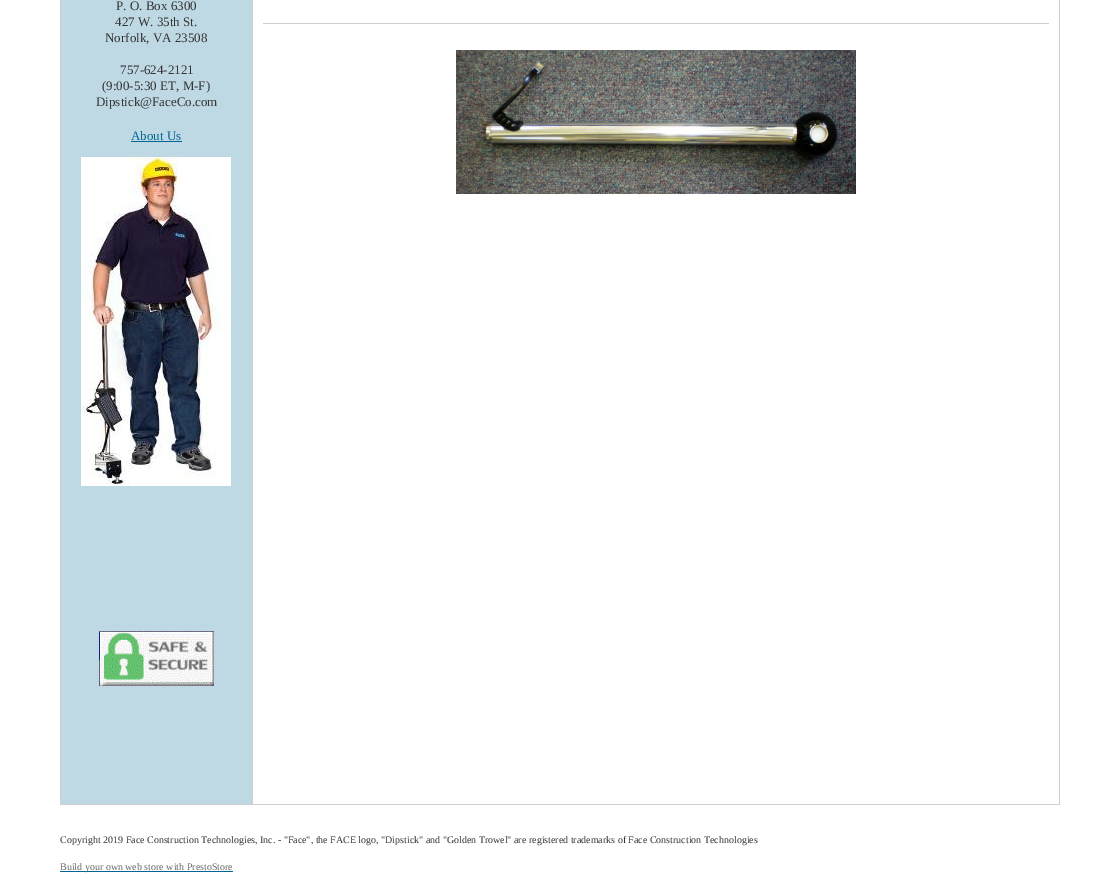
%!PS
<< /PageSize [1120 896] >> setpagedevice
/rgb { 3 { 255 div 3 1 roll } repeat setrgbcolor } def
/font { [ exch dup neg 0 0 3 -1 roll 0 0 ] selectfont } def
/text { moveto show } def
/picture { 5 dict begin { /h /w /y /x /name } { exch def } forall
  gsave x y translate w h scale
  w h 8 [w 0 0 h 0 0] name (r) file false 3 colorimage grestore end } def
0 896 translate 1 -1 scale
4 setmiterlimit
255 255 255 rgb
0 0 1120 896 rectfill
206 206 206 rgb
60 0 1 804 rectfill
191 217 228 rgb
61 0 191 804 rectfill
0 102 150 rgb
131 141 51 1 rectfill
(img_01.rgb) 81 157 150 329 picture
(img_02.rgb) 99 631 115 55 picture
206 206 206 rgb
252 0 1 804 rectfill
263 23 786 1 rectfill
(img_03.rgb) 456 50 400 144 picture
1059 0 1 804 rectfill
60 804 1000 1 rectfill
0 102 150 rgb
60 871 173 1 rectfill
/LiberationSerif-Regular 13 font
51 51 51 rgb
(P. O. Box 6300) 116 10 text
(427 W. 35th St.) 115 26 text
(Norfolk, VA 23508) 105 42 text
(757-624-2121) 120 74 text
(\(9:00-5:30 ET, M-F\)) 102 90 text
(Dipstick@FaceCo.com) 96 106 text
0 102 150 rgb
(About Us) 131 140 text
/LiberationSerif-Regular 10 font
51 51 51 rgb
(Copyright 2019 Face Construction Technologies, Inc. - "Face", the FACE logo, "Dipstick" and "Golden Trowel" are registered trademarks of Face Construction Technologies) 60 843 text
102 102 102 rgb
(Build your own web store with PrestoStore) 60 870 text
showpage
